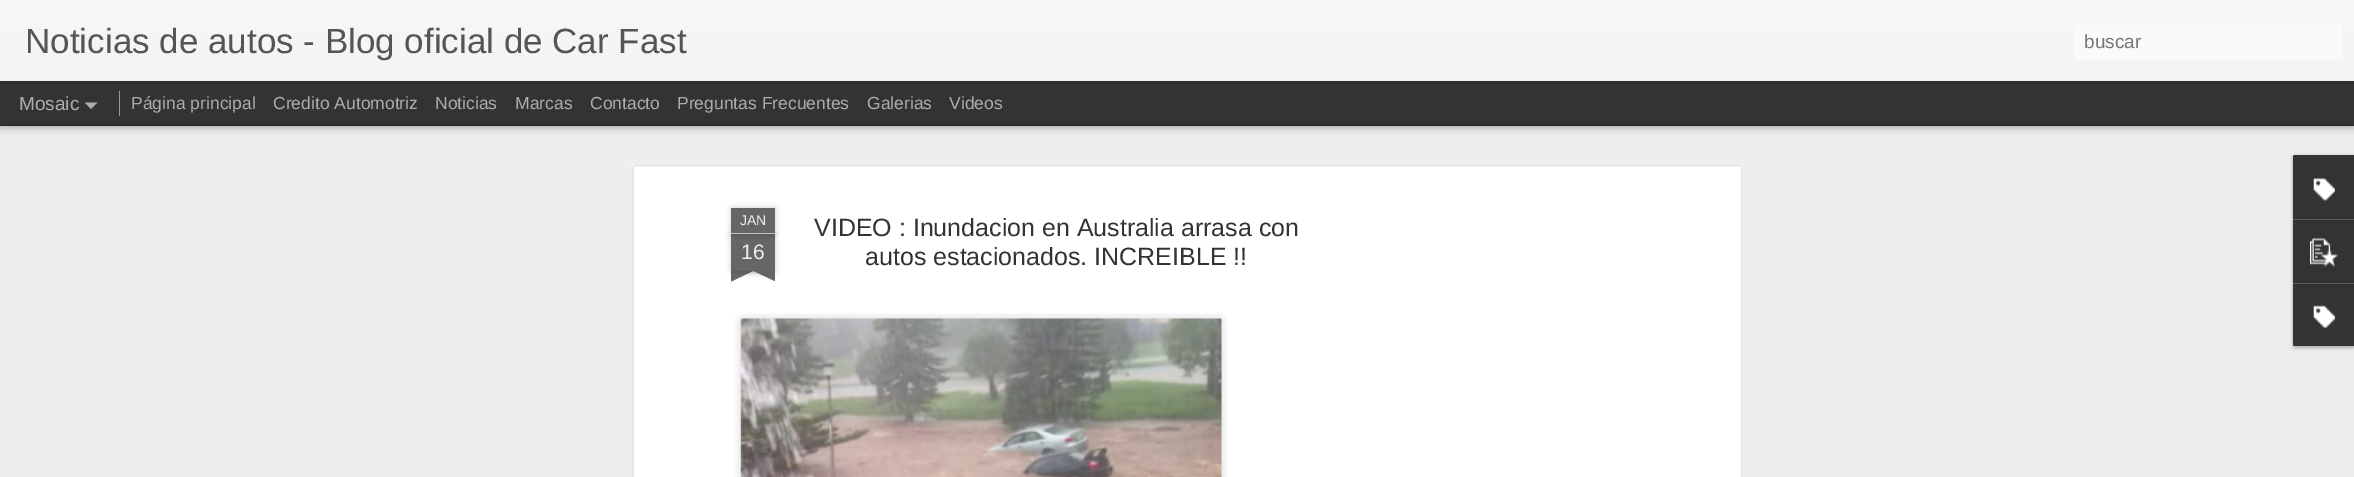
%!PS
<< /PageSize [2354 477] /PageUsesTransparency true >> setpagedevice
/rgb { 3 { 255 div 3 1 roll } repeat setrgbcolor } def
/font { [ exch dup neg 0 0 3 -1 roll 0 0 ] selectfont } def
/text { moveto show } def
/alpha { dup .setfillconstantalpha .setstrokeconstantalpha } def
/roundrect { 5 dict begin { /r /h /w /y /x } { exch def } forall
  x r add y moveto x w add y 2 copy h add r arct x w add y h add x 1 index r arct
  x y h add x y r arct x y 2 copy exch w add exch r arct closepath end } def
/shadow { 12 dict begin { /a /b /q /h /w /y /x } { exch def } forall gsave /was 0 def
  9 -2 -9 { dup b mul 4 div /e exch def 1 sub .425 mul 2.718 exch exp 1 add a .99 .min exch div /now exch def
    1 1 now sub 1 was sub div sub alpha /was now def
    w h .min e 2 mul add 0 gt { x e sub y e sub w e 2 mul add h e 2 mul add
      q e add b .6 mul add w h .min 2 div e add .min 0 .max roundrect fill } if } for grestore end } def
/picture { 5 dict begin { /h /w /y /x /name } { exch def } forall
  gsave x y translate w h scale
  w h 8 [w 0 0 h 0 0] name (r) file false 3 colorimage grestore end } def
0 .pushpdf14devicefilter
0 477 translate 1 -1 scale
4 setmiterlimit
51 51 51 rgb
0 0 2354 477 rectfill
238 238 238 rgb
0 126 2354 351 rectfill
0 0 0 rgb
0 81 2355 44 0 5 0.5 shadow
51 51 51 rgb
0 81 2354 44 rectfill
0 0 0 rgb
0 0 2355 81 0 3 0.3 shadow
gsave 0 0 moveto 2354 0 rlineto 0 81 rlineto -2354 0 rlineto closepath clip newpath
<< /ShadingType 2 /ColorSpace /DeviceRGB /Coords [0 0 0 81] /Extend [true true] /Function << /FunctionType 2 /Domain [0 1] /C0 [0.969 0.969 0.969] /C1 [0.957 0.957 0.957] /N 1 >> >> shfill grestore
250 250 250 rgb
2075 23 268 37 4 roundrect fill
173 173 173 rgb
85 102.5 moveto 12.5 0 rlineto -6.5 6.5 rlineto closepath fill
153 153 153 rgb
119 91 1 25 rectfill
255 255 255 rgb
631 164 1113 313 rectfill
(img_01.rgb) 631 164 1113 313 picture
0 0 0 rgb
731 234 44 37 0 3 0.2 shadow
102 102 102 rgb
731 234 44 37 rectfill
0 0 0 rgb
731 208 44 26 1 3 0.2 shadow
102 102 102 rgb
732 208 moveto 42 0 rlineto 0.5 0 1 0.5 1 1 rcurveto 0 25 rlineto -44 0 rlineto 0 -25 rlineto 0 -0.5 0.5 -1 1 -1 rcurveto closepath fill
194 194 194 rgb
731 233 44 1 rectfill
gsave
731 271 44 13 rectclip
0 0 0 rgb
720 259 63 12 0 3 0.2 shadow
grestore
gsave
731 271 44 13 rectclip
102 102 102 rgb
720 273 moveto 57 -27 rlineto 5 11 rlineto -56 27 rlineto closepath fill
grestore
gsave
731 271 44 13 rectclip
0 0 0 rgb
724 259 62 12 0 3 0.2 shadow
grestore
gsave
731 271 44 13 rectclip
102 102 102 rgb
729 246 moveto 57 27 rlineto -5 11 rlineto -57 -27 rlineto closepath fill
grestore
(img_02.rgb) 735 313 492 164 picture
(img_03.rgb) 740 318 482 159 picture
0 0 0 rgb
2293 156 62 192 2.5 2 0.3 shadow
51 51 51 rgb
2295.5 155 moveto 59.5 0 rlineto 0 191 rlineto -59.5 0 rlineto -1.5 0 -2.5 -1 -2.5 -2.5 rcurveto 0 -186 rlineto 0 -1.5 1 -2.5 2.5 -2.5 rcurveto closepath fill
2295.5 155 moveto 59.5 0 rlineto 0 64 rlineto -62 0 rlineto 0 -61.5 rlineto 0 -1.5 1 -2.5 2.5 -2.5 rcurveto closepath fill
(img_04.rgb) 2313 178 22 23 picture
88 88 88 rgb
2293 219 61 1 rectfill
(img_05.rgb) 2310 238 28 29 picture
51 51 51 rgb
2293 283 moveto 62 0 rlineto 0 63 rlineto -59.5 0 rlineto -1.5 0 -2.5 -1 -2.5 -2.5 rcurveto closepath fill
88 88 88 rgb
2293 283 61 1 rectfill
(img_06.rgb) 2313 305 22 23 picture
/LiberationSans-Regular 35 font
85 85 85 rgb
(Noticias de autos - Blog oficial de Car Fast) 25 53 text
/LiberationSans-Regular 19 font
117 117 117 rgb
(buscar) 2084 48 text
173 173 173 rgb
(Mosaic) 19 110 text
/LiberationSans-Regular 17.5 font
(Página principal) 131 109 text
(Credito Automotriz) 273 109 text
(Noticias) 435 109 text
(Marcas) 515 109 text
(Contacto) 590 109 text
(Preguntas Frecuentes) 677 109 text
(Galerias) 867 109 text
(Videos) 949 109 text
/LiberationSans-Regular 14 font
238 238 238 rgb
(JAN) 740 225 text
/LiberationSans-Regular 21 font
(16) 741 259 text
/LiberationSans-Regular 25 font
51 51 51 rgb
(VIDEO : Inundacion en Australia arrasa con) 814 236 text
(autos estacionados. INCREIBLE !!) 865 265 text
.poppdf14devicefilter showpage
